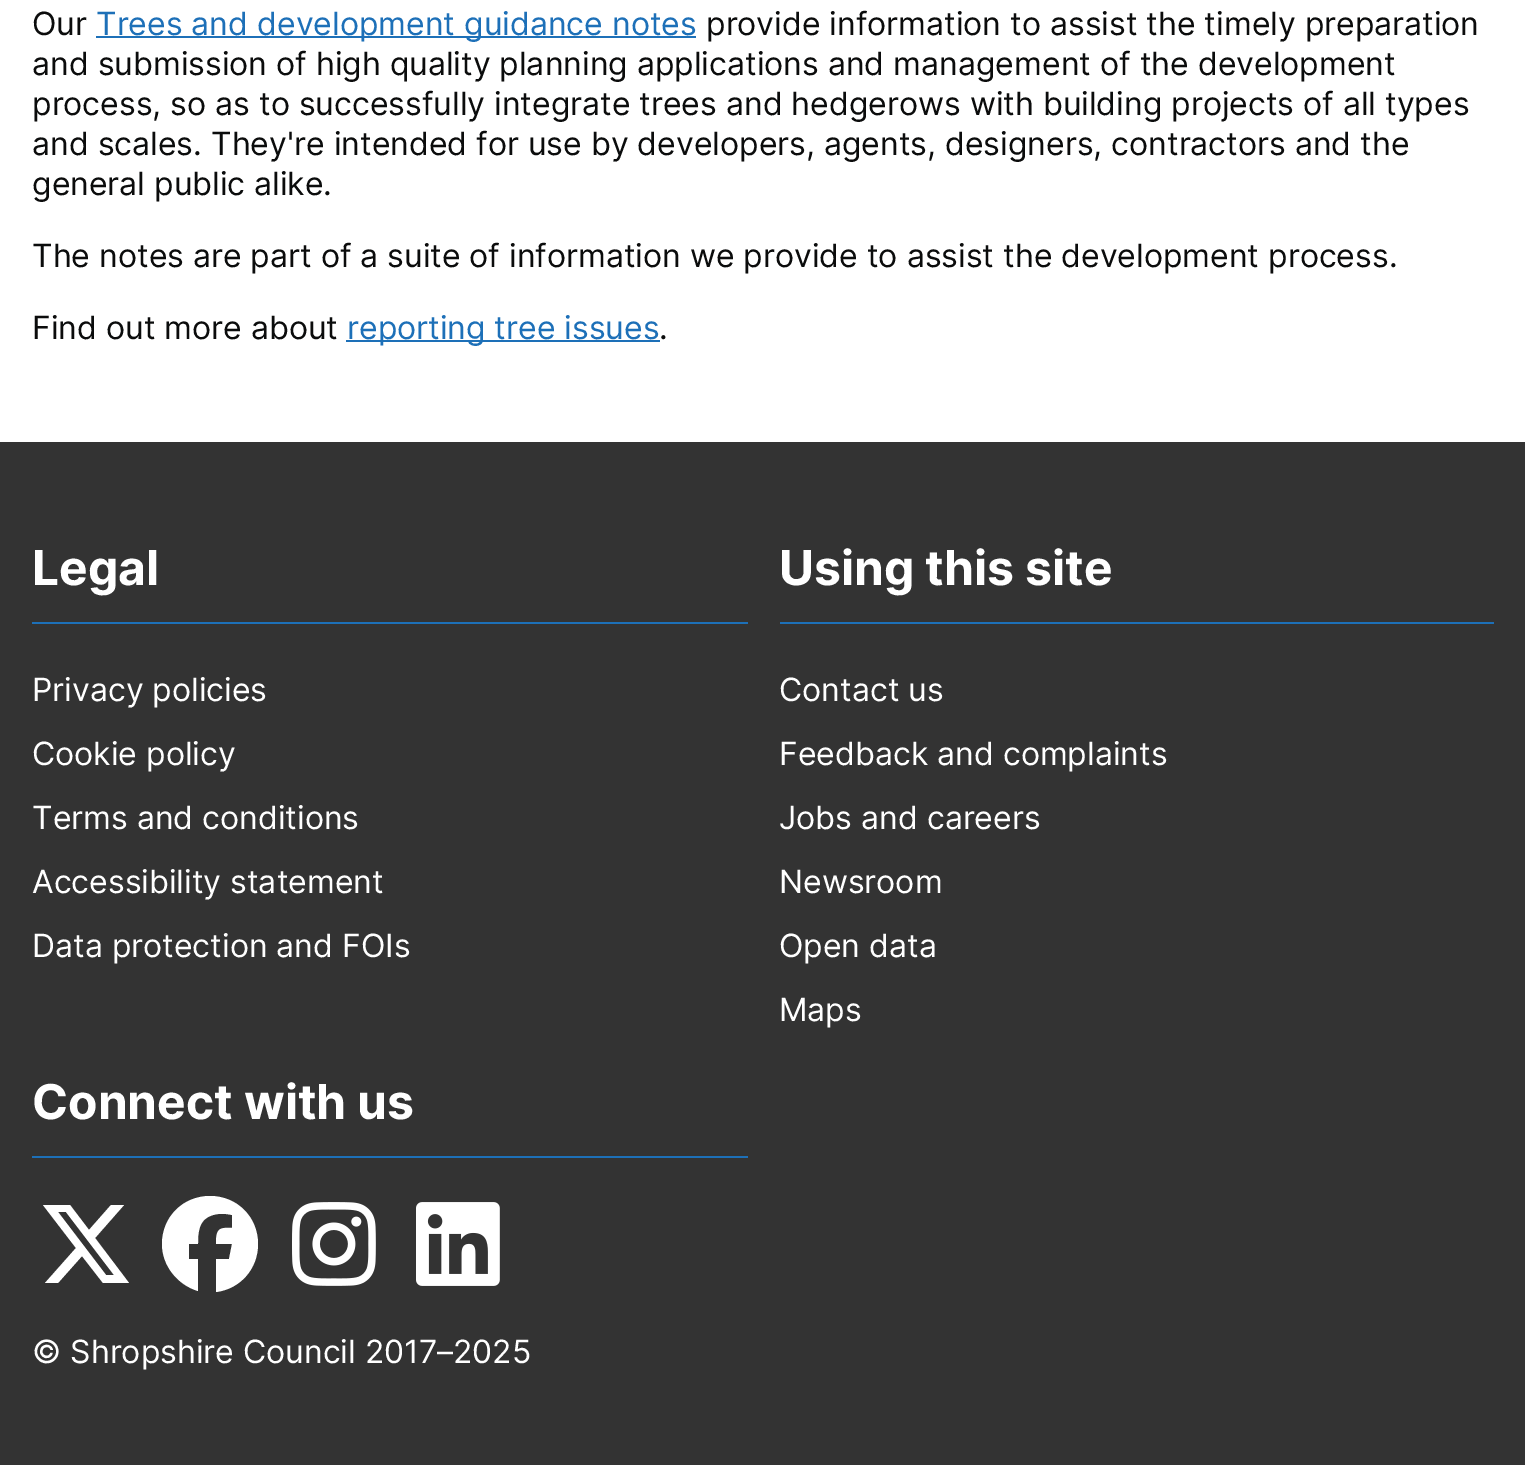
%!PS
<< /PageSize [1525 1465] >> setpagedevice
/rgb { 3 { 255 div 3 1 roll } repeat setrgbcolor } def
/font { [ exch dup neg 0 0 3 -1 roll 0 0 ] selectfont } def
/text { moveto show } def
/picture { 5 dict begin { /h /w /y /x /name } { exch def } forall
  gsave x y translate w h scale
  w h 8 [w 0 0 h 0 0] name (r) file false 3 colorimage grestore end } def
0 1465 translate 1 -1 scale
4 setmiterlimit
255 255 255 rgb
0 0 1525 1465 rectfill
29 112 184 rgb
96 36 600 2 rectfill
346 340 314 2 rectfill
51 51 51 rgb
0 442 1525 1023 rectfill
29 112 184 rgb
32 622 716 2 rectfill
780 622 714 2 rectfill
32 1156 716 2 rectfill
255 255 255 rgb
111 1205 moveto 13 0 rlineto -29 33 rlineto 34 45 rlineto -26 0 rlineto -21 -27 rlineto -24 27 rlineto -13 0 rlineto 31 -35 rlineto -33 -43 rlineto 27 0 rlineto 19 25 rlineto closepath 106 1275 moveto 8 0 rlineto -48 -63 rlineto -8 0 rlineto closepath fill
258 1244 moveto 0 -27 -21 -48 -48 -48 rcurveto -27 0 -48 21 -48 48 rcurveto 0 22 16 41 36 47 rcurveto 0 -32 rlineto -9 0 rlineto 0 -15 rlineto 9 0 rlineto 0 -6 0 -11 2 -17 rcurveto 4 -13 20 -15 32 -12 rcurveto 0 13 rlineto -14 -1 -16 2 -16 16 rcurveto 16 0 rlineto -3 15 rlineto -13 0 rlineto 0 33 rlineto 24 -3 42 -23 42 -48 rcurveto closepath fill
(img_01.rgb) 292 1202 84 84 picture
(img_02.rgb) 416 1202 84 84 picture
/Inter-Regular 32 font
11 12 12 rgb
(Our) 32 35 text
29 112 184 rgb
(Trees and development guidance notes) 96 35 text
11 12 12 rgb
(provide information to assist the timely preparation) 706 35 text
(and submission of high quality planning applications and management of the development) 32 75 text
(process, so as to successfully integrate trees and hedgerows with building projects of all types) 32 115 text
(and scales. They're intended for use by developers, agents, designers, contractors and the) 32 155 text
(general public alike.) 32 195 text
(The notes are part of a suite of information we provide to assist the development process.) 32 267 text
(Find out more about) 32 339 text
29 112 184 rgb
(reporting tree issues) 347 339 text
11 12 12 rgb
(.) 659 339 text
/Inter-Bold 48 font
255 255 255 rgb
(Legal) 32 585 text
/Inter-Regular 32 font
(Privacy policies) 32 701 text
(Cookie policy) 32 765 text
(Terms and conditions) 32 829 text
(Accessibility statement) 32 893 text
(Data protection and FOIs) 32 957 text
/Inter-Bold 48 font
(Using this site) 779 585 text
/Inter-Regular 32 font
(Contact us) 779 701 text
(Feedback and complaints) 779 765 text
(Jobs and careers) 779 829 text
(Newsroom) 779 893 text
(Open data) 779 957 text
(Maps) 779 1021 text
/Inter-Bold 48 font
(Connect with us) 32 1119 text
/Inter-Regular 32 font
(© Shropshire Council 2017–2025) 32 1363 text
showpage
